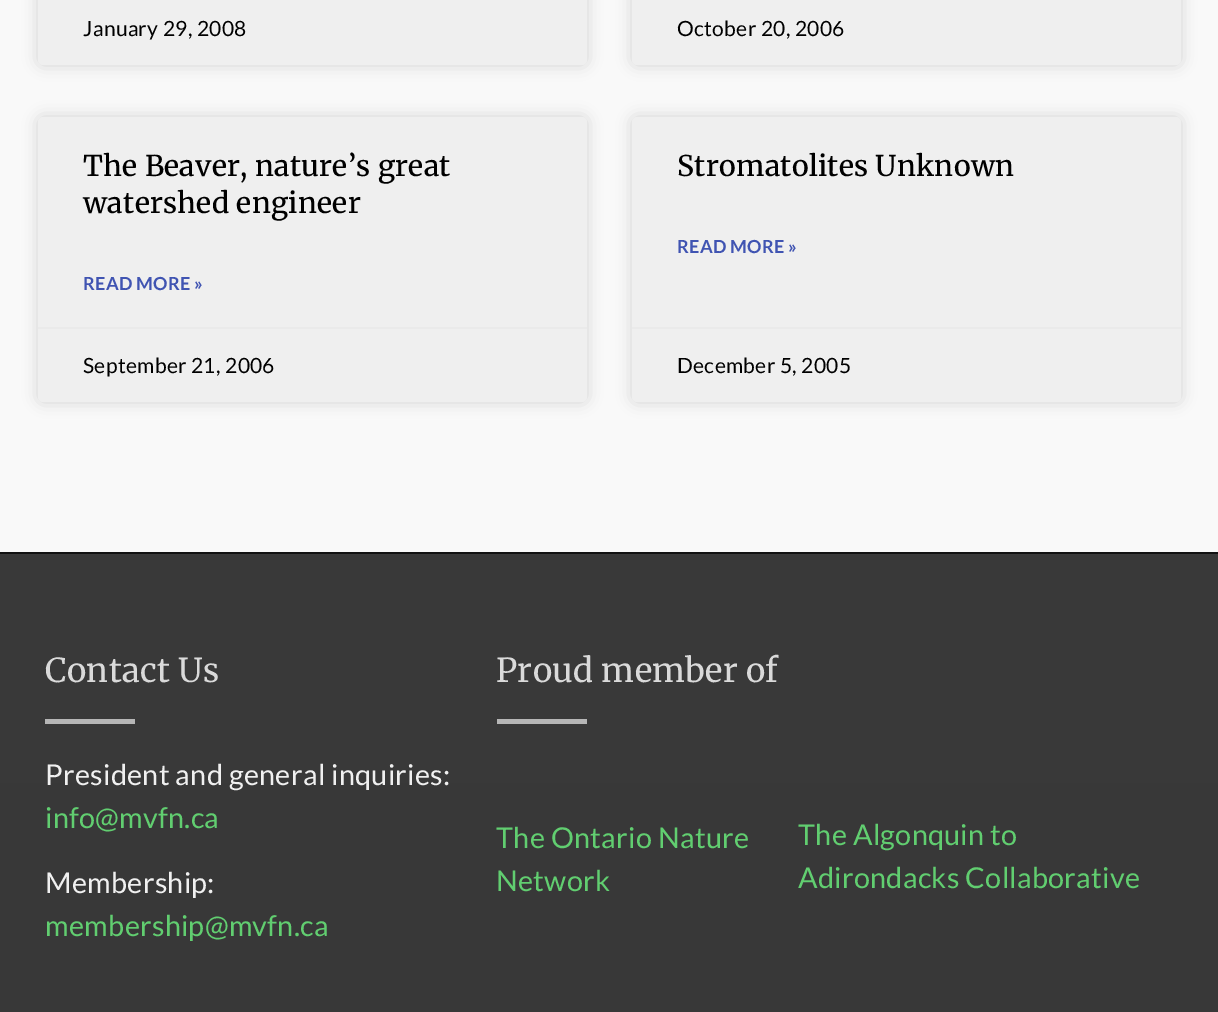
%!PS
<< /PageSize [1218 1012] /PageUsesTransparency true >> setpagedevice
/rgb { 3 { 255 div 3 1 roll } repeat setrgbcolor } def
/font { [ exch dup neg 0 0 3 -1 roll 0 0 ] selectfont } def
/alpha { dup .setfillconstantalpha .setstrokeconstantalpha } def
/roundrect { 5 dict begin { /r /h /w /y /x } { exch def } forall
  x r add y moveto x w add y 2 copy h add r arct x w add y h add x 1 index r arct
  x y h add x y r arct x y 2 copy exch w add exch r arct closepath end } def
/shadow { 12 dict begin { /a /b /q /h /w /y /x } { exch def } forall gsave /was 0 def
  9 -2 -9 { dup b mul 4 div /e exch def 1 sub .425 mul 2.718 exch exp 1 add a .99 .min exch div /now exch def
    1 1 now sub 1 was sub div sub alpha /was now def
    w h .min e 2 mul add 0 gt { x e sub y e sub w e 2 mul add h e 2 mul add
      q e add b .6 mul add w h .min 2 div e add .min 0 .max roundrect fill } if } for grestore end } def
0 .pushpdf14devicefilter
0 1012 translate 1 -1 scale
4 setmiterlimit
249 249 249 rgb
0 0 1218 1012 rectfill
0 0 0 rgb
38 -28 549 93 5 7.5 0.15 shadow
239 239 239 rgb
38 -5 549 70 5 roundrect fill
0 0 0 rgb
632 -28 549 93 5 7.5 0.15 shadow
239 239 239 rgb
632 -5 549 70 5 roundrect fill
0 0 0 rgb
38 117 549 285 5 7.5 0.15 shadow
239 239 239 rgb
38 117 549 285 5 roundrect fill
234 234 234 rgb
38 327 549 2 rectfill
0 0 0 rgb
632 117 549 285 5 7.5 0.15 shadow
239 239 239 rgb
632 117 549 285 5 roundrect fill
234 234 234 rgb
632 327 549 2 rectfill
gsave 0 554 moveto 1218 0 rlineto 0 458 rlineto -1218 0 rlineto closepath clip newpath
<< /ShadingType 2 /ColorSpace /DeviceRGB /Coords [609 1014 609 553] /Extend [true true] /Function << /FunctionType 2 /Domain [0 1] /C0 [0.22 0.22 0.22] /C1 [0.227 0.227 0.227] /N 1 >> >> shfill grestore
18 18 18 rgb
0 552 1218 2 rectfill
182 182 182 rgb
45 719 90 5 rectfill
497 719 90 5 rectfill
/Lato-Regular 21 font
0 0 0 rgb
83 36 moveto 0.3 0 (January 29, 2008) ashow
677 36 moveto 0.3 0 (October 20, 2006) ashow
/Merriweather-Medium 28.5 font
83 176 moveto 0.3 0 (The Beaver, nature’s great) ashow
83 213 moveto 0.3 0 (watershed engineer) ashow
/Lato-Bold 18 font
64 84 178 rgb
83 290 moveto 0.3 0 (READ MORE ») ashow
/Lato-Regular 21 font
0 0 0 rgb
83 373 moveto 0.3 0 (September 21, 2006) ashow
/Merriweather-Medium 28.5 font
677 176 moveto 0.3 0 (Stromatolites Unknown) ashow
/Lato-Bold 18 font
64 84 178 rgb
677 253 moveto 0.3 0 (READ MORE ») ashow
/Lato-Regular 21 font
0 0 0 rgb
677 373 moveto 0.3 0 (December 5, 2005) ashow
/Merriweather-Regular 33 font
218 218 218 rgb
45 682 moveto 0.3 0 (Contact Us) ashow
496 682 moveto 0.3 0 (Proud member of) ashow
/Lato-Regular 28.75 font
240 240 240 rgb
45 785 moveto 0.3 0 (President and general inquiries:) ashow
97 206 112 rgb
45 828 moveto 0.3 0 (info@mvfn.ca) ashow
240 240 240 rgb
45 893 moveto 0.3 0 (Membership:) ashow
97 206 112 rgb
45 936 moveto 0.3 0 (membership@mvfn.ca) ashow
496 848 moveto 0.3 0 (The Ontario Nature) ashow
496 891 moveto 0.3 0 (Network) ashow
798 845 moveto 0.3 0 (The Algonquin to) ashow
798 888 moveto 0.3 0 (Adirondacks Collaborative) ashow
.poppdf14devicefilter showpage
